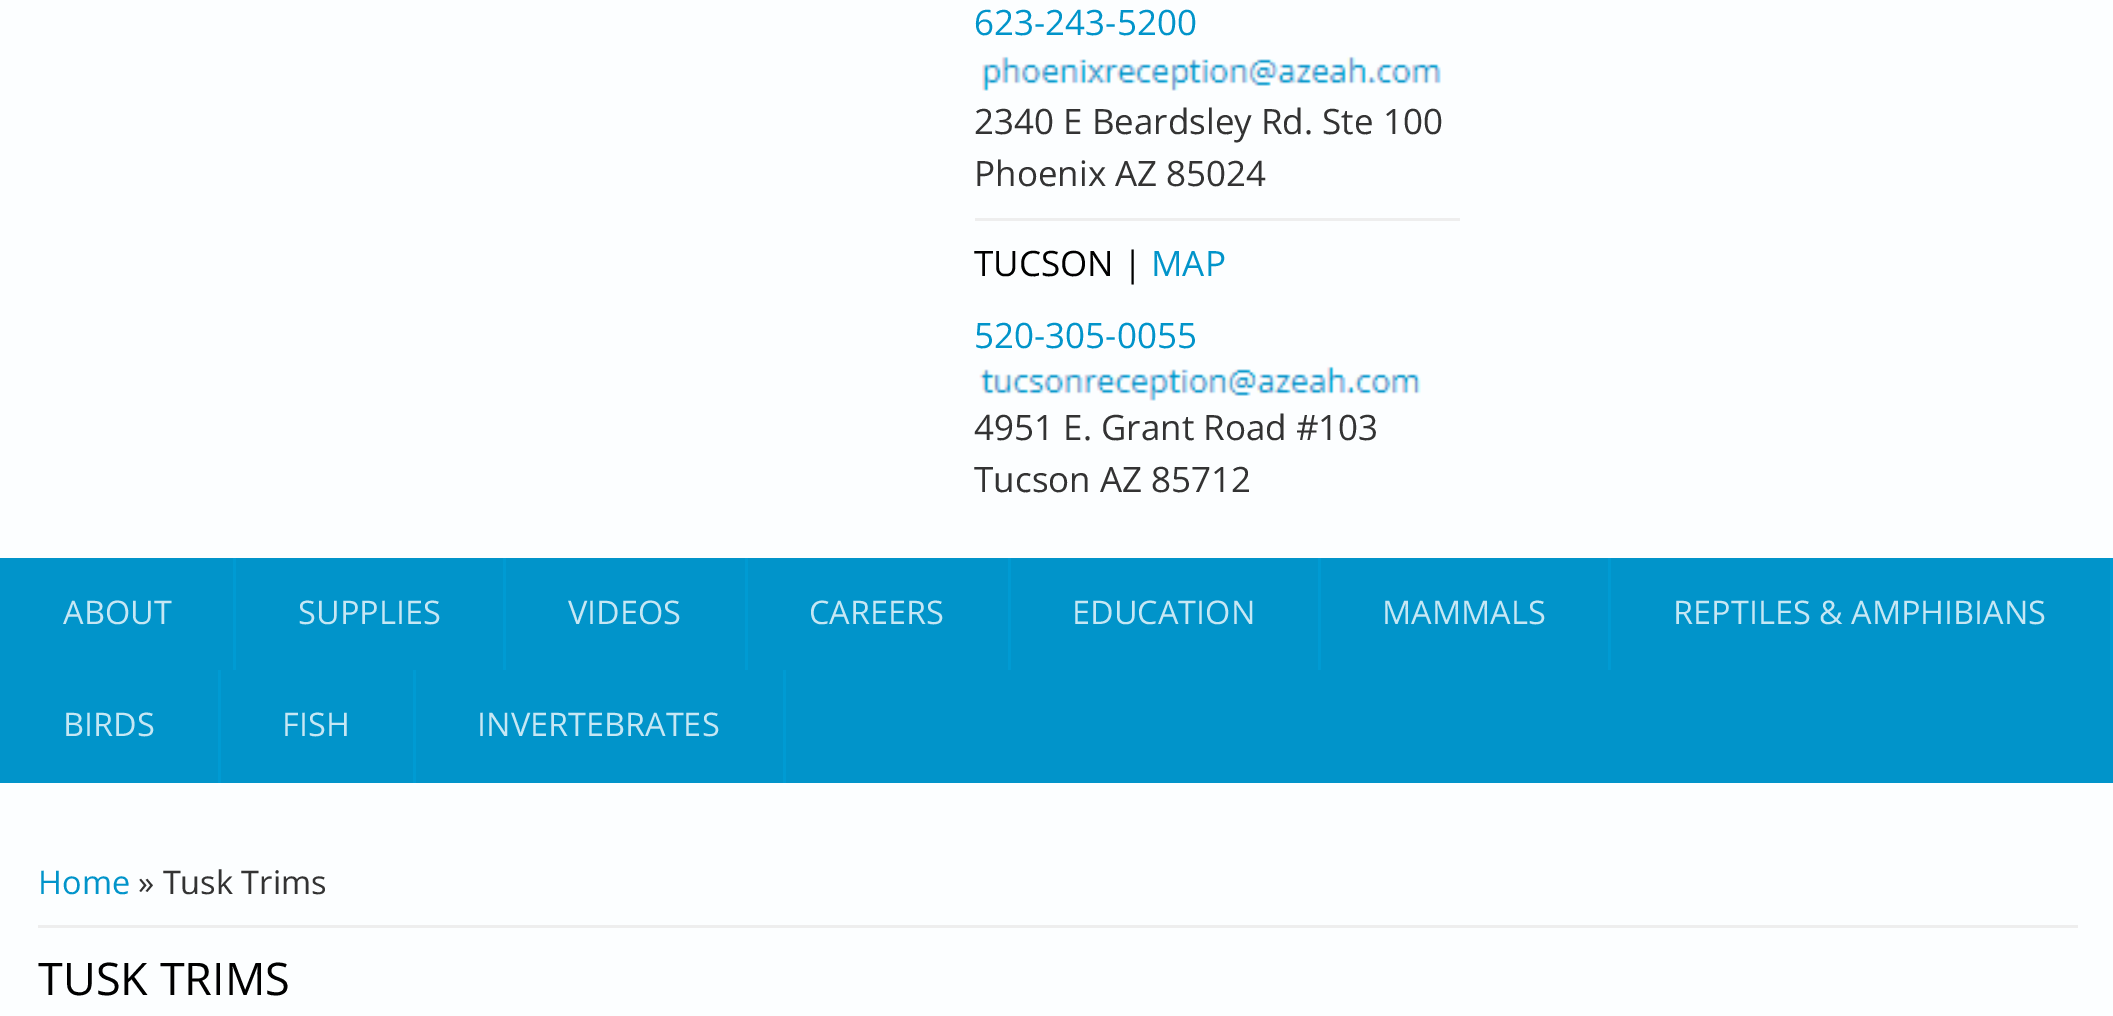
%!PS
<< /PageSize [2113 1016] >> setpagedevice
/rgb { 3 { 255 div 3 1 roll } repeat setrgbcolor } def
/font { [ exch dup neg 0 0 3 -1 roll 0 0 ] selectfont } def
/text { moveto show } def
/picture { 5 dict begin { /h /w /y /x /name } { exch def } forall
  gsave x y translate w h scale
  w h 8 [w 0 0 h 0 0] name (r) file false 3 colorimage grestore end } def
0 1016 translate 1 -1 scale
4 setmiterlimit
252 254 255 rgb
0 0 2113 1016 rectfill
(img_01.rgb) 982 56 459 35 picture
238 238 238 rgb
975 218 485 3 rectfill
(img_02.rgb) 979 366 442 35 picture
1 148 202 rgb
0 558 2113 225 rectfill
0 155 211 rgb
233 558 3 112 rectfill
503 558 3 112 rectfill
745 558 3 112 rectfill
1008 558 3 112 rectfill
1318 558 3 112 rectfill
1608 558 3 112 rectfill
2110 558 3 112 rectfill
218 670 3 113 rectfill
413 670 3 113 rectfill
783 670 3 113 rectfill
238 238 238 rgb
38 925 2040 3 rectfill
/OpenSans-Regular 35 font
1 148 202 rgb
(623-243-5200) 974 35 text
51 51 51 rgb
(2340 E Beardsley Rd. Ste 100) 974 134 text
(Phoenix AZ 85024) 974 186 text
0 0 0 rgb
(TUCSON |) 974 276 text
1 148 202 rgb
(MAP) 1151 276 text
(520-305-0055) 974 348 text
51 51 51 rgb
(4951 E. Grant Road #103) 974 440 text
(Tucson AZ 85712) 974 492 text
/OpenSans-Regular 32.5 font
198 231 244 rgb
(ABOUT) 63 624 text
(SUPPLIES) 298 624 text
(VIDEOS) 568 624 text
(CAREERS) 809 624 text
(EDUCATION) 1072 624 text
(MAMMALS) 1382 624 text
(REPTILES & AMPHIBIANS) 1673 624 text
(BIRDS) 63 736 text
(FISH) 282 736 text
(INVERTEBRATES) 477 736 text
1 148 202 rgb
(Home) 38 894 text
51 51 51 rgb
(» Tusk Trims) 138 894 text
gsave
38 858 2040 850 rectclip
/OpenSans-Regular 45 font
0 0 0 rgb
(TUSK TRIMS) 38 995 text
grestore
showpage
